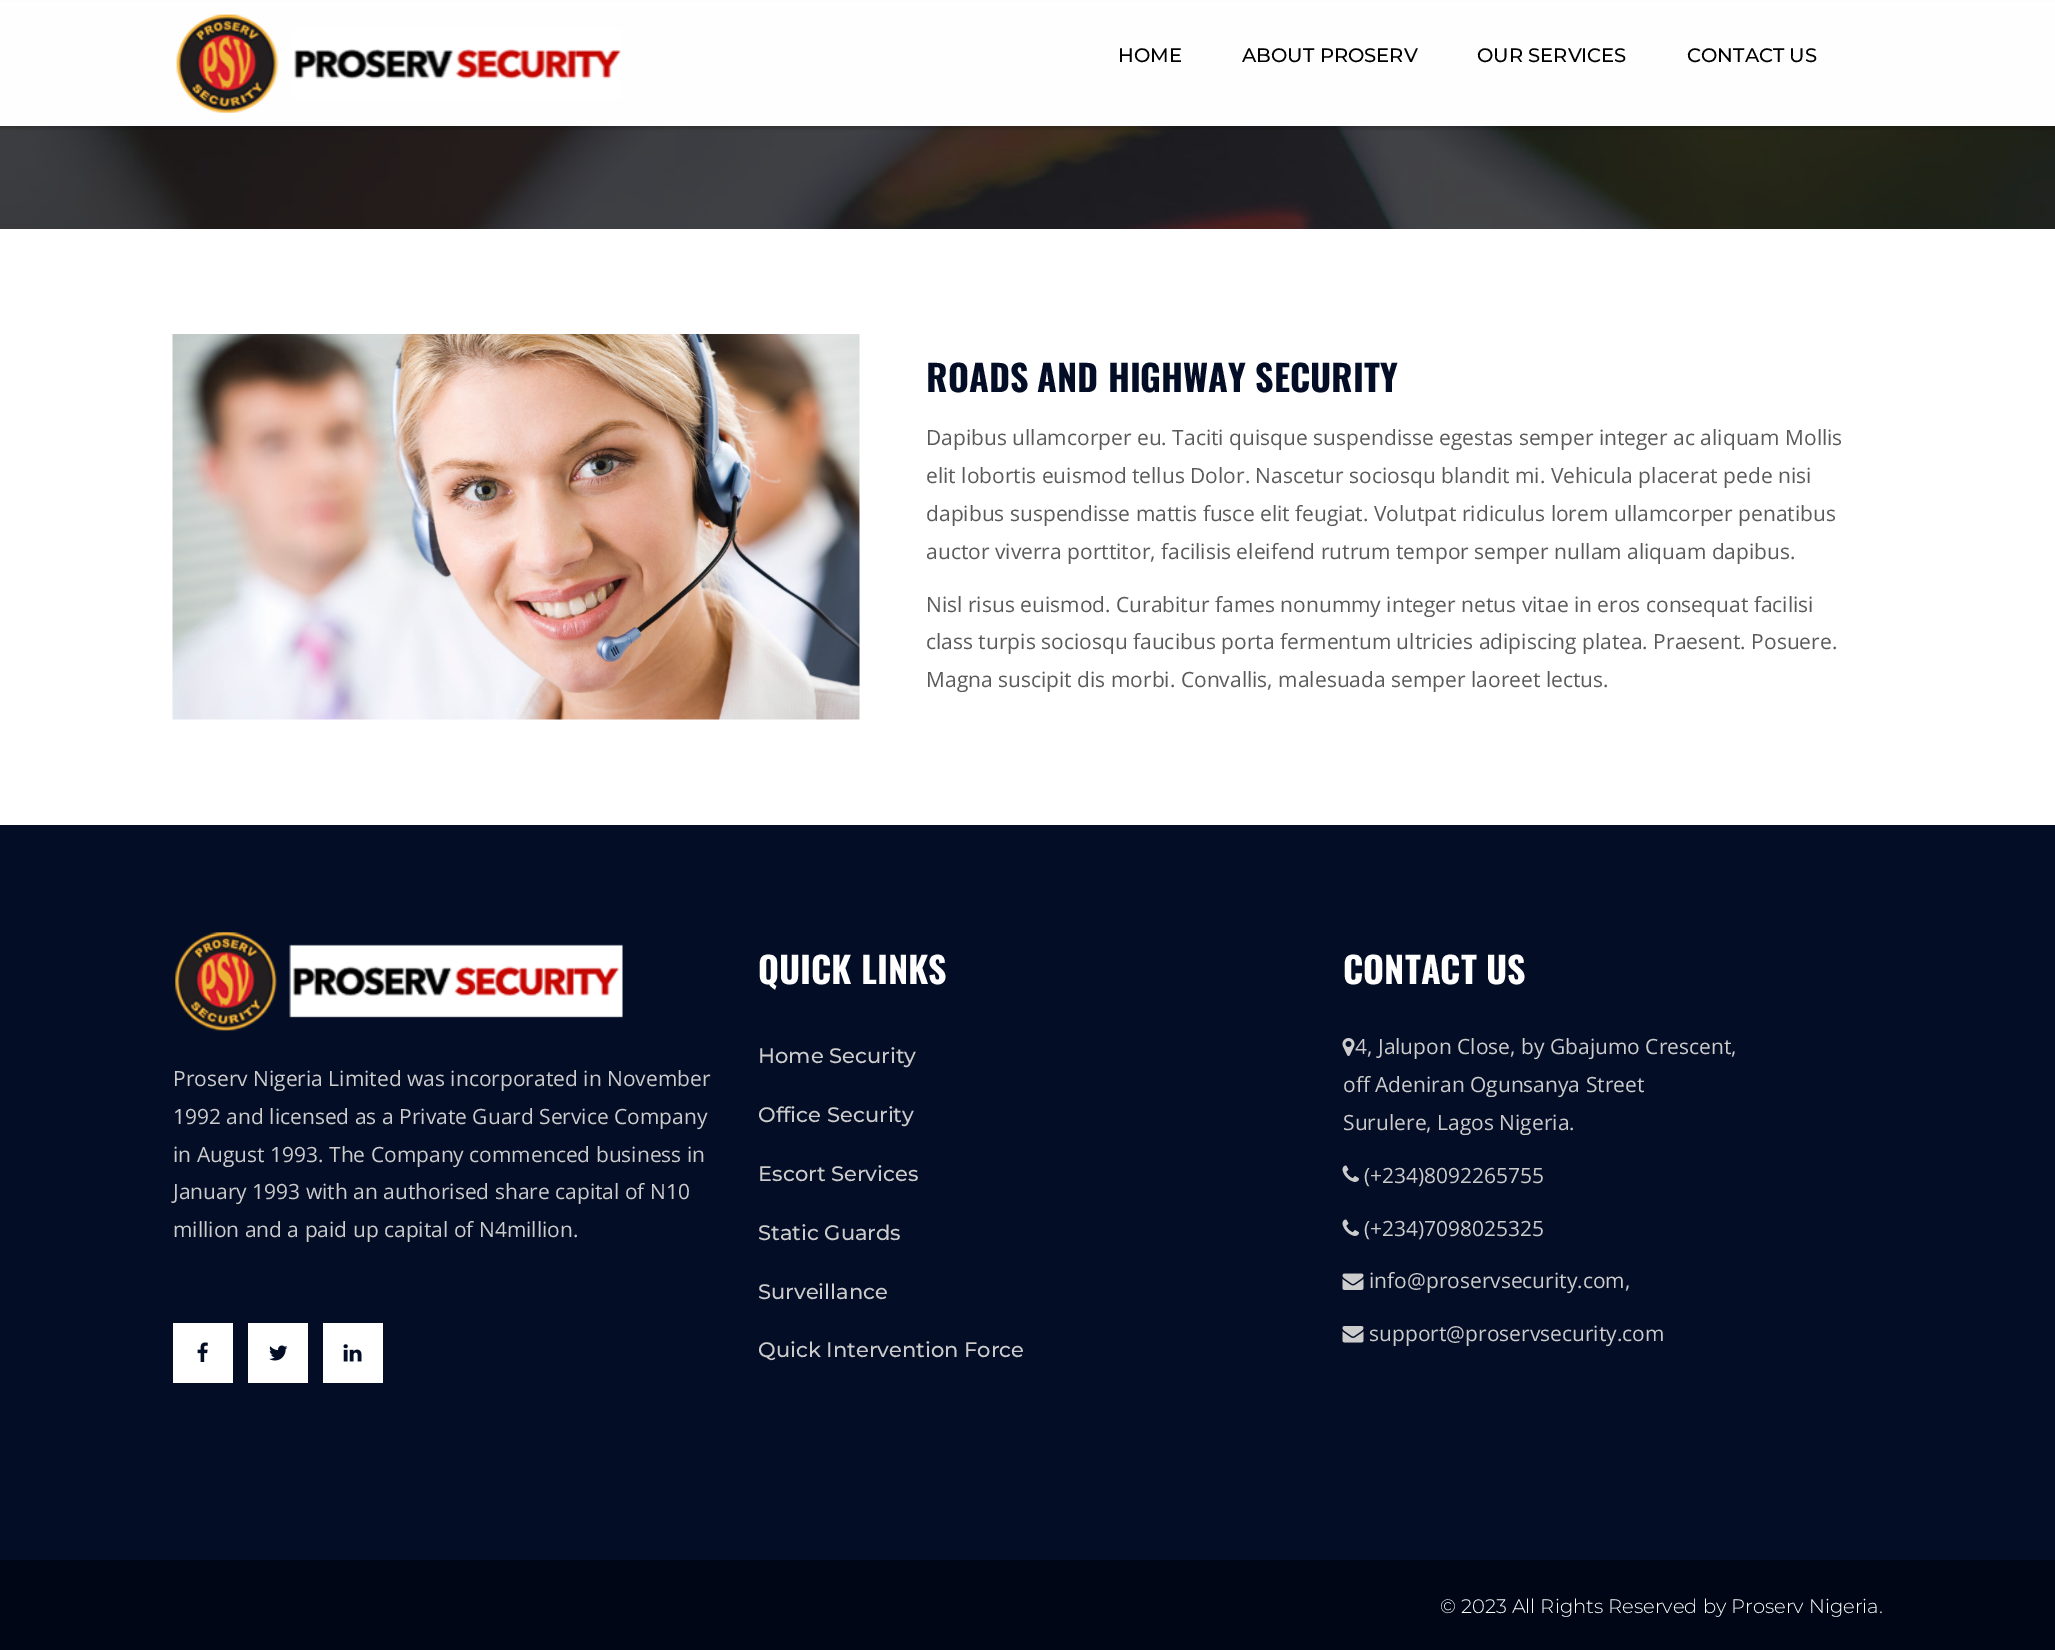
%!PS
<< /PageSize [2055 1650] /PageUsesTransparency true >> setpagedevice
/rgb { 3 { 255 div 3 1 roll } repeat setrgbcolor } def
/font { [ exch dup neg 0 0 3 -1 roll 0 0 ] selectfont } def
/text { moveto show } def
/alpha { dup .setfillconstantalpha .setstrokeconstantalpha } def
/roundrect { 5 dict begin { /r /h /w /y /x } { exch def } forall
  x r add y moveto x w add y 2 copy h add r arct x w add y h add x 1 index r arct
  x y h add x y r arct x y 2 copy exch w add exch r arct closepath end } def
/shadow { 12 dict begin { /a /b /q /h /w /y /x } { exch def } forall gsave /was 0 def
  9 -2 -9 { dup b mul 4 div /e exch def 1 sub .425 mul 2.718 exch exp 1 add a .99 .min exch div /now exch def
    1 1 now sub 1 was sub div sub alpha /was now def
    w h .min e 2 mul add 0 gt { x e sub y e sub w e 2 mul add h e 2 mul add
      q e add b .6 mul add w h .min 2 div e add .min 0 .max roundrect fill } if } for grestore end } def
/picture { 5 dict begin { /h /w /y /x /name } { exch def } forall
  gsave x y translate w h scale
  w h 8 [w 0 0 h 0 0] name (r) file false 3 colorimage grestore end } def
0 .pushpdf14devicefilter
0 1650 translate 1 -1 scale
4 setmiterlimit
255 255 255 rgb
0 0 2055 1650 rectfill
(img_02.rgb) 0 126 2055 103 picture
0 0 0 rgb
0 3 2055 126 0 1.5 0.2 shadow
254 254 254 rgb
0 1 2055 125 rectfill
(img_01.rgb) 176 14 445 99 picture
(img_03.rgb) 172 334 688 386 picture
3 13 38 rgb
0 825 2055 735 rectfill
(img_04.rgb) 175 932 448 99 picture
255 255 255 rgb
173 1323 60 60 rectfill
(img_05.rgb) 197 1342 11 20 picture
248 1323 60 60 rectfill
(img_06.rgb) 269 1345 19 16 picture
323 1323 60 60 rectfill
(img_07.rgb) 343 1344 19 18 picture
(img_08.rgb) 1342 1038 13 18 picture
(img_09.rgb) 1342 1165 17 17 picture
(img_09.rgb) 1342 1219 17 17 picture
(img_10.rgb) 1342 1273 22 17 picture
(img_11.rgb) 1342 1326 22 17 picture
0 6 21 rgb
0 1560 2055 90 rectfill
/Montserrat-Medium 19.5 font
0 0 0 rgb
(HOME) 1118 62 text
(ABOUT PROSERV) 1242 62 text
(OUR SERVICES) 1477 62 text
(CONTACT US) 1687 62 text
/Oswald-Bold 36 font
3 13 38 rgb
(ROADS AND HIGHWAY SECURITY) 926 392 text
/OpenSans-Regular 21 font
90 90 90 rgb
(Dapibus ullamcorper eu. Taciti quisque suspendisse egestas semper integer ac aliquam Mollis) 926 445 text
(elit lobortis euismod tellus Dolor. Nascetur sociosqu blandit mi. Vehicula placerat pede nisi) 926 483 text
(dapibus suspendisse mattis fusce elit feugiat. Volutpat ridiculus lorem ullamcorper penatibus) 926 521 text
(auctor viverra porttitor, facilisis eleifend rutrum tempor semper nullam aliquam dapibus.) 926 559 text
(Nisl risus euismod. Curabitur fames nonummy integer netus vitae in eros consequat facilisi) 926 612 text
(class turpis sociosqu faucibus porta fermentum ultricies adipiscing platea. Praesent. Posuere.) 926 649 text
(Magna suscipit dis morbi. Convallis, malesuada semper laoreet lectus.) 926 687 text
204 204 204 rgb
(Proserv Nigeria Limited was incorporated in November) 173 1086 text
(1992 and licensed as a Private Guard Service Company) 173 1124 text
(in August 1993. The Company commenced business in) 173 1162 text
(January 1993 with an authorised share capital of N10) 173 1199 text
(million and a paid up capital of N4million.) 173 1237 text
/Oswald-Bold 36 font
255 255 255 rgb
(QUICK LINKS) 758 984 text
/Montserrat-Medium 21 font
204 204 204 rgb
(Home Security) 758 1063 text
(Office Security) 758 1122 text
(Escort Services) 758 1181 text
(Static Guards) 758 1240 text
(Surveillance) 758 1299 text
(Quick Intervention Force) 758 1357 text
/Oswald-Bold 36 font
255 255 255 rgb
(CONTACT US) 1343 984 text
/OpenSans-Regular 21 font
204 204 204 rgb
(4, Jalupon Close, by Gbajumo Crescent,) 1355 1054 text
(off Adeniran Ogunsanya Street) 1343 1092 text
(Surulere, Lagos Nigeria.) 1343 1130 text
(\(+234\)8092265755) 1364 1183 text
(\(+234\)7098025325) 1364 1236 text
(info@proservsecurity.com,) 1369 1288 text
(support@proservsecurity.com) 1369 1341 text
/Montserrat-Light 19.5 font
255 255 255 rgb
(© 2023 All Rights Reserved by Proserv Nigeria.) 1440 1613 text
.poppdf14devicefilter showpage
